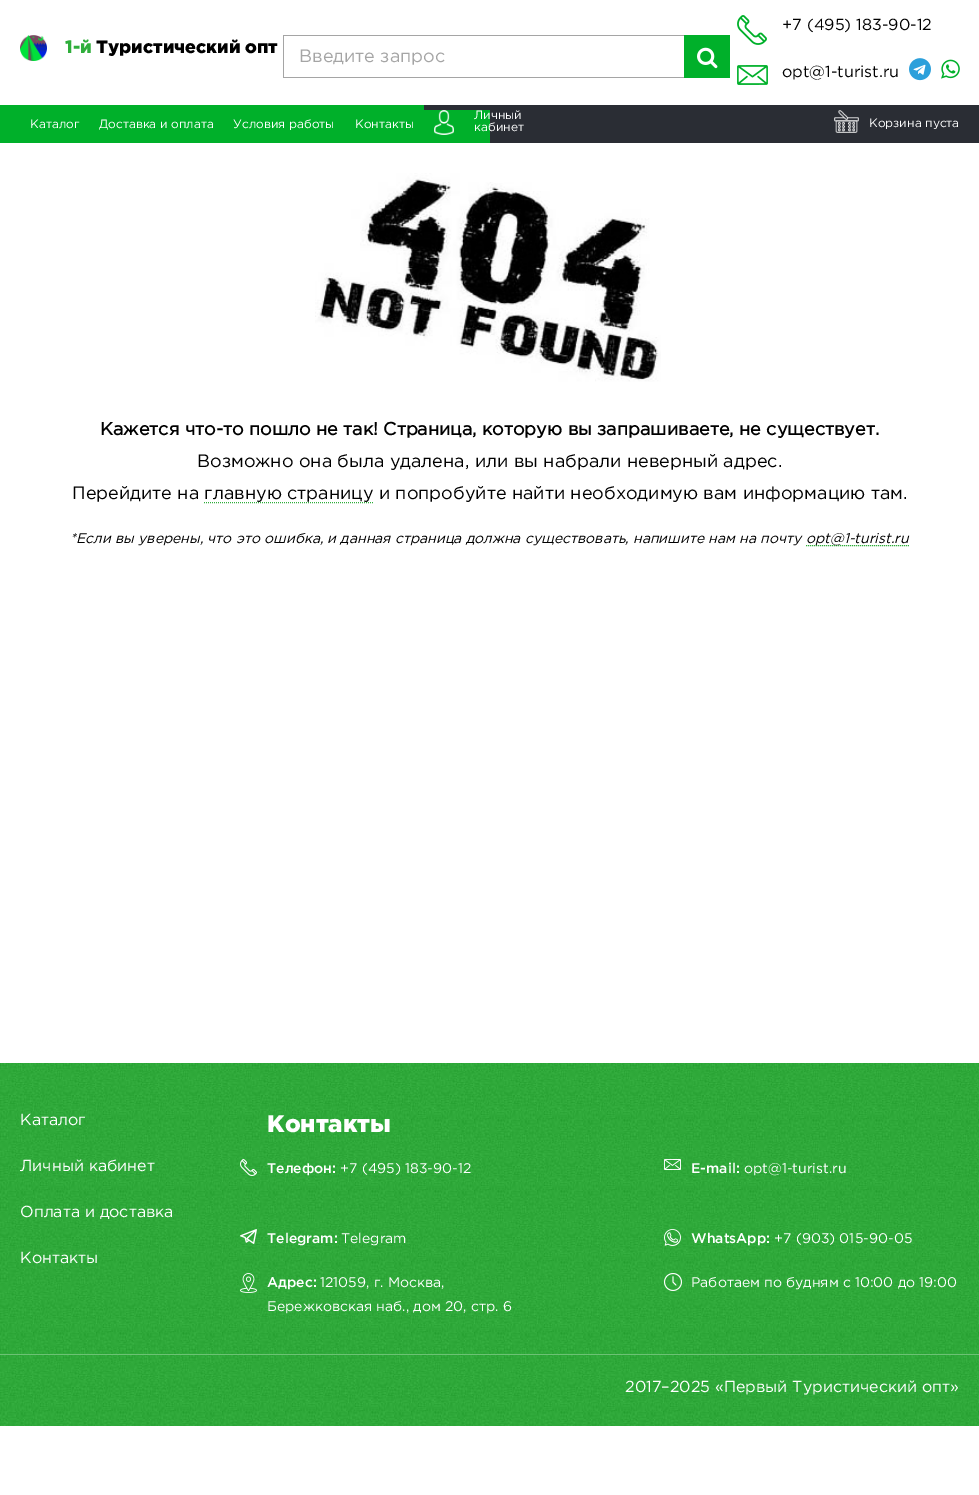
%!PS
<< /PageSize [979 1495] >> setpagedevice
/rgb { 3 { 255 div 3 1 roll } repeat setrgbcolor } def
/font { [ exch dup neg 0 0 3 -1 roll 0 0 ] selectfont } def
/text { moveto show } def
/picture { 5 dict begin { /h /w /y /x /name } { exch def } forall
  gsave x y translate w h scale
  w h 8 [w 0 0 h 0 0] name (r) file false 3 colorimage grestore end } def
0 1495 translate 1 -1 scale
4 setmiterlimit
255 255 255 rgb
0 0 979 1495 rectfill
(img_01.rgb) 20 35 27 26 picture
165 165 165 rgb
283 35 401 1 rectfill
283 77 401 1 rectfill
283 35 1 43 rectfill
0 176 42 rgb
684 35 46 43 rectfill
(img_02.rgb) 697 47 21 22 picture
(img_03.rgb) 737 15 30 30 picture
(img_04.rgb) 737 65 31 20 picture
(img_05.rgb) 909 58 22 23 picture
(img_06.rgb) 941 59 19 20 picture
0 105 490 38 rectfill
42 45 52 rgb
490 105 489 38 rectfill
424 105 66 5 rectfill
(img_07.rgb) 434 110 20 25 picture
(img_08.rgb) 834 110 25 23 picture
(img_09.rgb) 315 173 346 209 picture
47 174 59 rgb
[1 1] 0 setdash
204 502.5 moveto 169 0 rlineto stroke
806 545.5 moveto 103 0 rlineto stroke
(img_10.rgb) 0 1063 979 291 picture
(img_11.rgb) 240 1159 17 17 picture
(img_12.rgb) 664 1159 17 11 picture
(img_13.rgb) 240 1229 17 15 picture
(img_14.rgb) 664 1229 17 17 picture
(img_15.rgb) 240 1273 17 20 picture
(img_16.rgb) 664 1273 18 18 picture
(img_17.rgb) 0 1355 979 71 picture
108 194 116 rgb
0 1354 979 1 rectfill
/Gotham-Black 18 font
47 174 59 rgb
(1-й) 65 53 text
0 0 0 rgb
(Туристический опт) 96 53 text
/Gotham-Regular 18 font
165 165 165 rgb
(Введите запрос) 299 62 text
/Gotham-Regular 16 font
0 0 0 rgb
(+7 \(495\) 183-90-12) 782 30 text
(opt@1-turist.ru) 782 77 text
/Gotham-Regular 12 font
255 255 255 rgb
(Каталог) 30 128 text
(Доставка и оплата) 99 128 text
(Условия работы) 233 128 text
(Контакты) 355 128 text
(Личный) 474 119 text
(кабинет) 474 131 text
(Корзина пуста) 869 127 text
/Gotham-Bold 18 font
0 0 0 rgb
(Кажется что-то пошло не так! Страница, которую вы запрашиваете, не существует.) 100 435 text
/Gotham-Regular 18 font
(Возможно она была удалена, или вы набрали неверный адрес.) 197 467 text
(Перейдите на главную страницу и попробуйте найти необходимую вам информацию там.) 72 499 text
/Gotham-Italic 14 font
(*Если вы уверены, что это ошибка, и данная страница должна существовать, напишите нам на почту) 70 543 text
(opt@1-turist.ru) 806 543 text
/Gotham-Regular 16 font
255 255 255 rgb
(Каталог) 20 1125 text
(Личный кабинет) 20 1171 text
(Оплата и доставка) 20 1217 text
(Контакты) 20 1263 text
/Gotham-Black 24 font
(Контакты) 267 1132 text
/Gotham-Medium 14 font
(Телефон:) 267 1173 text
/Gotham-Regular 14 font
(+7 \(495\) 183-90-12) 340 1173 text
/Gotham-Medium 14 font
(E-mail:) 691 1173 text
/Gotham-Regular 14 font
(opt@1-turist.ru) 744 1173 text
/Gotham-Medium 14 font
(Telegram:) 267 1243 text
/Gotham-Regular 14 font
(Telegram) 341 1243 text
/Gotham-Medium 14 font
(WhatsApp:) 691 1243 text
/Gotham-Regular 14 font
(+7 \(903\) 015-90-05) 774 1243 text
/Gotham-Medium 14 font
(Адрес:) 267 1287 text
/Gotham-Regular 14 font
(121059, г. Москва,) 320 1287 text
(Бережковская наб., дом 20, cтр. 6) 267 1311 text
(Работаем по будням с 10:00 до 19:00) 691 1287 text
/Gotham-Regular 16 font
(2017–2025 «Первый Туристический опт») 625 1392 text
showpage
